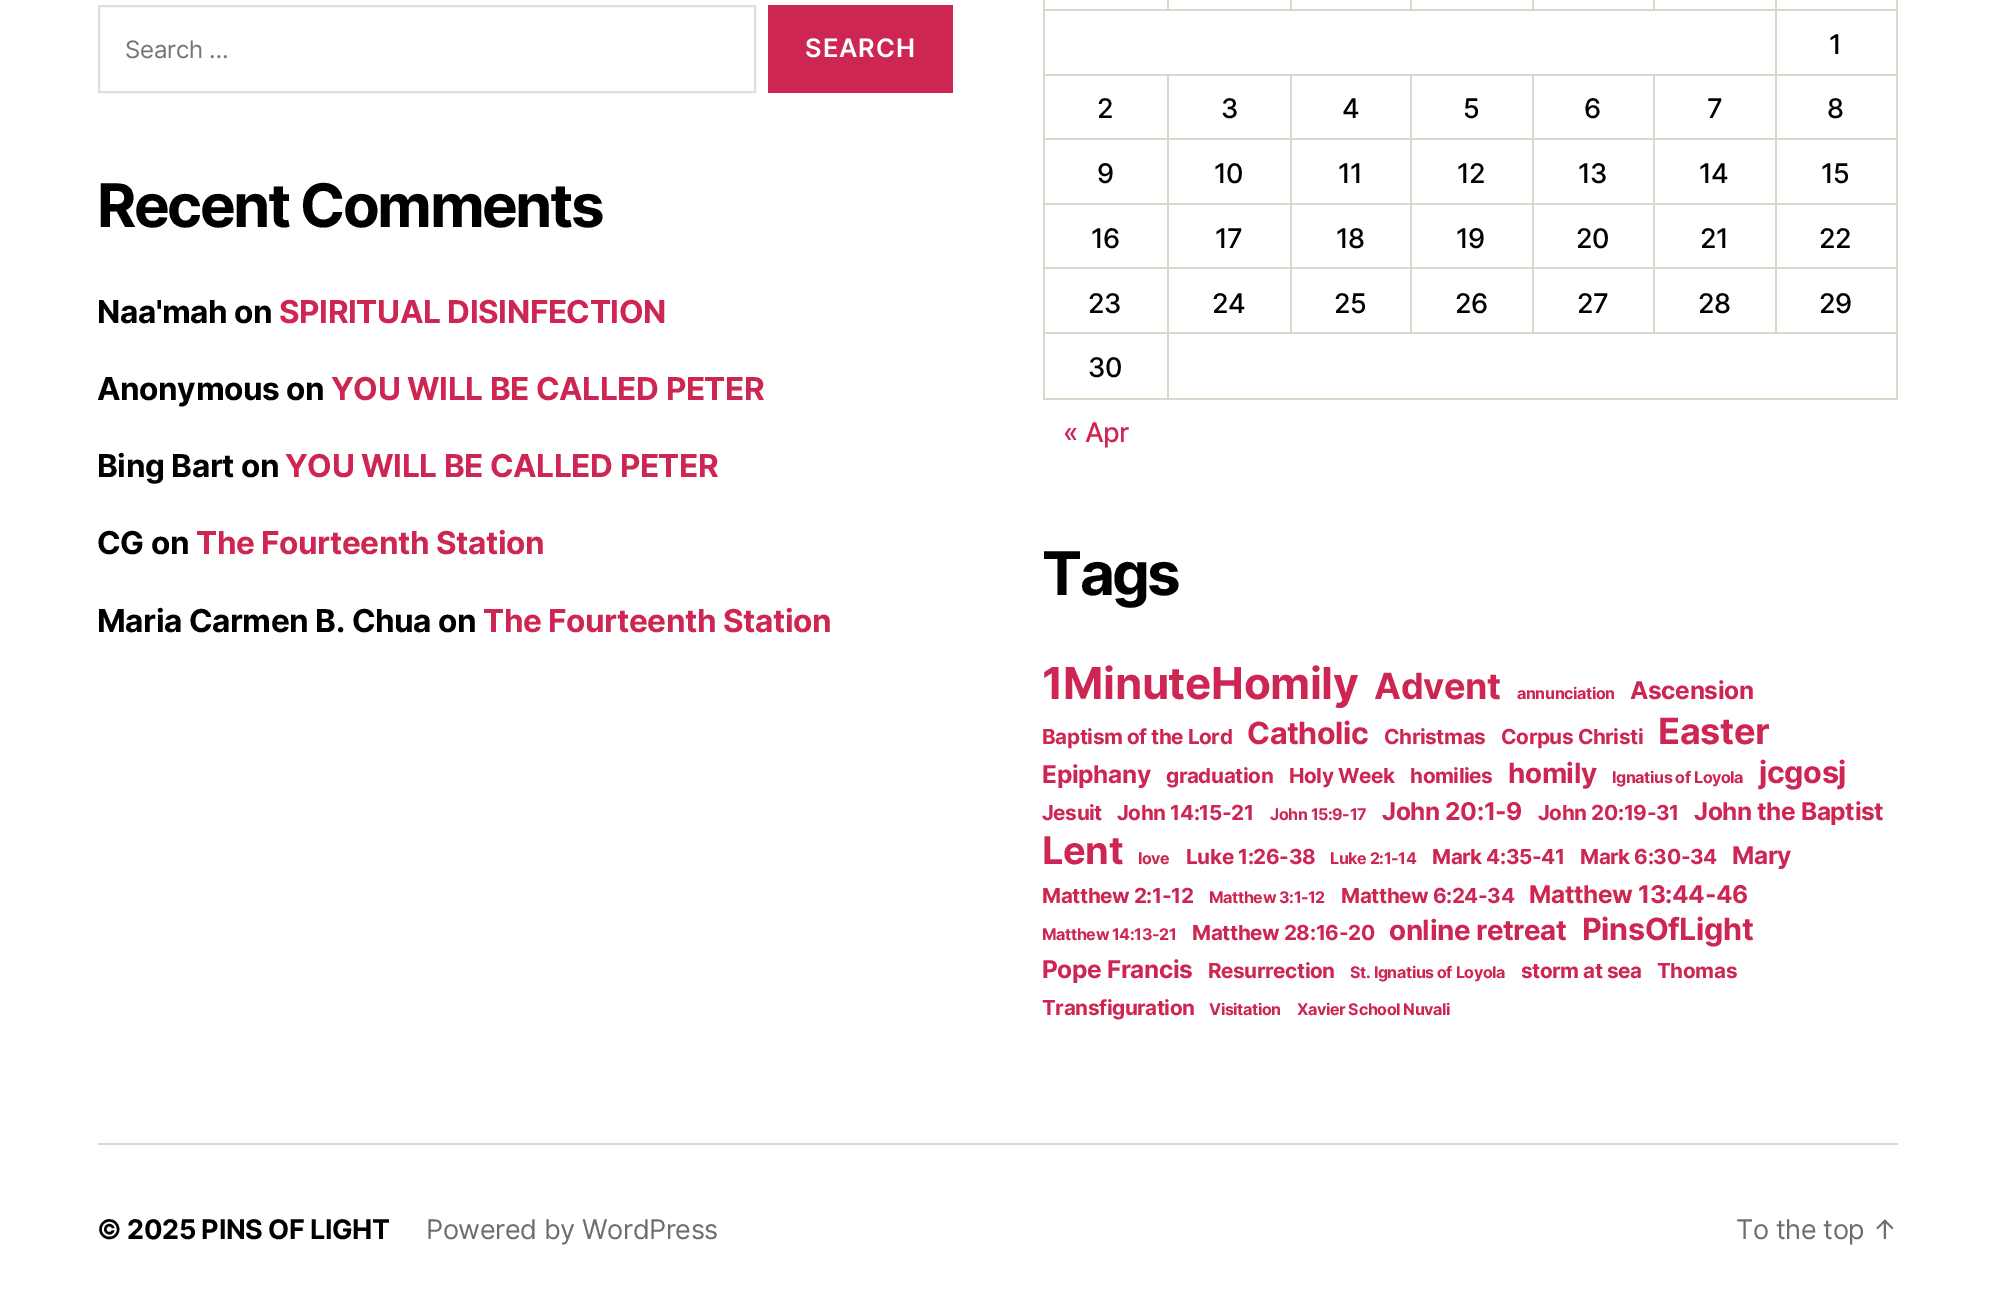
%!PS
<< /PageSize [1993 1313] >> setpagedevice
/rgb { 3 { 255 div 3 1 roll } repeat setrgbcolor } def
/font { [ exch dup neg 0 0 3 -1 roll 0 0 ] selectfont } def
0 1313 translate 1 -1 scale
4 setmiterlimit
255 255 255 rgb
0 0 1993 1313 rectfill
220 215 202 rgb
98 1143 1800 2 rectfill
222 223 223 rgb
2 setlinewidth
99 6 656 86 rectstroke
205 38 83 rgb
768 5 185 88 rectfill
220 215 202 rgb
1896 0 2 399 rectfill
1043 398 855 2 rectfill
1043 0 2 399 rectfill
1775 9 121 2 rectfill
1775 74 121 2 rectfill
1775 138 121 2 rectfill
1775 203 121 2 rectfill
1775 267 121 2 rectfill
1167 332 729 2 rectfill
1775 267 2 66 rectfill
1653 267 123 2 rectfill
1775 203 2 66 rectfill
1653 203 123 2 rectfill
1775 138 2 66 rectfill
1653 138 123 2 rectfill
1775 74 2 66 rectfill
1653 74 123 2 rectfill
1775 9 2 66 rectfill
1044 9 732 2 rectfill
1167 0 2 11 rectfill
1290 0 2 11 rectfill
1410 0 2 11 rectfill
1532 0 2 11 rectfill
1653 0 2 11 rectfill
1775 0 2 11 rectfill
1653 267 2 66 rectfill
1532 267 123 2 rectfill
1653 203 2 66 rectfill
1532 203 123 2 rectfill
1653 138 2 66 rectfill
1532 138 123 2 rectfill
1653 74 2 66 rectfill
1532 74 123 2 rectfill
1532 267 2 66 rectfill
1410 267 123 2 rectfill
1532 203 2 66 rectfill
1410 203 123 2 rectfill
1532 138 2 66 rectfill
1410 138 123 2 rectfill
1532 74 2 66 rectfill
1410 74 123 2 rectfill
1410 267 2 66 rectfill
1290 267 122 2 rectfill
1410 203 2 66 rectfill
1290 203 122 2 rectfill
1410 138 2 66 rectfill
1290 138 122 2 rectfill
1410 74 2 66 rectfill
1290 74 122 2 rectfill
1290 267 2 66 rectfill
1167 267 125 2 rectfill
1290 203 2 66 rectfill
1167 203 125 2 rectfill
1290 138 2 66 rectfill
1167 138 125 2 rectfill
1290 74 2 66 rectfill
1167 74 125 2 rectfill
1167 332 2 66 rectfill
1044 332 125 2 rectfill
1167 267 2 66 rectfill
1044 267 125 2 rectfill
1167 203 2 66 rectfill
1044 203 125 2 rectfill
1167 138 2 66 rectfill
1044 138 125 2 rectfill
1167 74 2 66 rectfill
1044 74 125 2 rectfill
/Inter-Regular 24 font
117 117 117 rgb
125 58 moveto -0.25 0 (Search …) ashow
/Inter-SemiBold 25.5 font
255 255 255 rgb
805 57 moveto 1 0 (SEARCH) ashow
/Inter-Bold 60 font
0 0 0 rgb
97 227 moveto -2.5 0 (Recent Comments) ashow
/Inter-Bold 31.5 font
97 323 moveto -0.4 0 (Naa'mah on) ashow
205 38 83 rgb
279 323 moveto -0.4 0 (SPIRITUAL DISINFECTION) ashow
0 0 0 rgb
97 400 moveto -0.4 0 (Anonymous on) ashow
205 38 83 rgb
331 400 moveto -0.4 0 (YOU WILL BE CALLED PETER) ashow
0 0 0 rgb
97 477 moveto -0.4 0 (Bing Bart on) ashow
205 38 83 rgb
285 477 moveto -0.4 0 (YOU WILL BE CALLED PETER) ashow
0 0 0 rgb
97 554 moveto -0.4 0 (CG on) ashow
205 38 83 rgb
196 554 moveto -0.4 0 (The Fourteenth Station) ashow
0 0 0 rgb
97 632 moveto -0.4 0 (Maria Carmen B. Chua on) ashow
205 38 83 rgb
483 632 moveto -0.4 0 (The Fourteenth Station) ashow
/Inter-Medium 27 font
0 0 0 rgb
1829 54 moveto -0.4 0 (1) ashow
1097 118 moveto -0.4 0 (2) ashow
1221 118 moveto -0.4 0 (3) ashow
1342 118 moveto -0.4 0 (4) ashow
1463 118 moveto -0.4 0 (5) ashow
1584 118 moveto -0.4 0 (6) ashow
1707 118 moveto -0.4 0 (7) ashow
1827 118 moveto -0.4 0 (8) ashow
1097 183 moveto -0.4 0 (9) ashow
1214 183 moveto -0.4 0 (10) ashow
1338 183 moveto -0.4 0 (11) ashow
1457 183 moveto -0.4 0 (12) ashow
1578 183 moveto -0.4 0 (13) ashow
1699 183 moveto -0.4 0 (14) ashow
1821 183 moveto -0.4 0 (15) ashow
1091 248 moveto -0.4 0 (16) ashow
1215 248 moveto -0.4 0 (17) ashow
1336 248 moveto -0.4 0 (18) ashow
1456 248 moveto -0.4 0 (19) ashow
1576 248 moveto -0.4 0 (20) ashow
1700 248 moveto -0.4 0 (21) ashow
1819 248 moveto -0.4 0 (22) ashow
1088 313 moveto -0.4 0 (23) ashow
1212 313 moveto -0.4 0 (24) ashow
1334 313 moveto -0.4 0 (25) ashow
1455 313 moveto -0.4 0 (26) ashow
1577 313 moveto -0.4 0 (27) ashow
1698 313 moveto -0.4 0 (28) ashow
1819 313 moveto -0.4 0 (29) ashow
1088 377 moveto -0.4 0 (30) ashow
205 38 83 rgb
1063 442 moveto -0.4 0 (« Apr) ashow
/Inter-Bold 60 font
0 0 0 rgb
1042 595 moveto -2.5 0 (Tags) ashow
/Inter-Bold 44 font
205 38 83 rgb
1042 699 moveto -0.4 0 (1MinuteHomily) ashow
/Inter-Bold 36 font
1374 699 moveto -0.4 0 (Advent) ashow
/Inter-Bold 16 font
1517 699 moveto -0.4 0 (annunciation) ashow
/Inter-Bold 24.5 font
1630 699 moveto -0.4 0 (Ascension) ashow
/Inter-Bold 20.75 font
1042 744 moveto -0.4 0 (Baptism of the Lord) ashow
/Inter-Bold 30.5 font
1247 744 moveto -0.4 0 (Catholic) ashow
/Inter-Bold 20.75 font
1384 744 moveto -0.4 0 (Christmas) ashow
1501 744 moveto -0.4 0 (Corpus Christi) ashow
/Inter-Bold 36 font
1658 744 moveto -0.4 0 (Easter) ashow
/Inter-Bold 24.5 font
1042 783 moveto -0.4 0 (Epiphany) ashow
/Inter-Bold 20.75 font
1166 783 moveto -0.4 0 (graduation) ashow
1289 783 moveto -0.4 0 (Holy Week) ashow
1410 783 moveto -0.4 0 (homilies) ashow
/Inter-Bold 27.75 font
1508 783 moveto -0.4 0 (homily) ashow
/Inter-Bold 16 font
1612 783 moveto -0.4 0 (Ignatius of Loyola) ashow
/Inter-Bold 30.5 font
1759 783 moveto -0.4 0 (jcgosj) ashow
/Inter-Bold 20.75 font
1042 820 moveto -0.4 0 (Jesuit) ashow
1117 820 moveto -0.4 0 (John 14:15-21) ashow
/Inter-Bold 16 font
1270 820 moveto -0.4 0 (John 15:9-17) ashow
/Inter-Bold 24.5 font
1382 820 moveto -0.4 0 (John 20:1-9) ashow
/Inter-Bold 20.75 font
1538 820 moveto -0.4 0 (John 20:19-31) ashow
/Inter-Bold 24.5 font
1694 820 moveto -0.4 0 (John the Baptist) ashow
/Inter-Bold 38 font
1042 864 moveto -0.4 0 (Lent) ashow
/Inter-Bold 16 font
1138 864 moveto -0.4 0 (love) ashow
/Inter-Bold 20.75 font
1186 864 moveto -0.4 0 (Luke 1:26-38) ashow
/Inter-Bold 16 font
1330 864 moveto -0.4 0 (Luke 2:1-14) ashow
/Inter-Bold 20.75 font
1432 864 moveto -0.4 0 (Mark 4:35-41) ashow
1580 864 moveto -0.4 0 (Mark 6:30-34) ashow
/Inter-Bold 24.5 font
1732 864 moveto -0.4 0 (Mary) ashow
/Inter-Bold 20.75 font
1042 903 moveto -0.4 0 (Matthew 2:1-12) ashow
/Inter-Bold 16 font
1209 903 moveto -0.4 0 (Matthew 3:1-12) ashow
/Inter-Bold 20.75 font
1341 903 moveto -0.4 0 (Matthew 6:24-34) ashow
/Inter-Bold 24.5 font
1529 903 moveto -0.4 0 (Matthew 13:44-46) ashow
/Inter-Bold 16 font
1042 940 moveto -0.4 0 (Matthew 14:13-21) ashow
/Inter-Bold 20.75 font
1192 940 moveto -0.4 0 (Matthew 28:16-20) ashow
/Inter-Bold 27.75 font
1389 940 moveto -0.4 0 (online retreat) ashow
/Inter-Bold 30.5 font
1582 940 moveto -0.4 0 (PinsOfLight) ashow
/Inter-Bold 24.5 font
1042 978 moveto -0.4 0 (Pope Francis) ashow
/Inter-Bold 20.75 font
1208 978 moveto -0.4 0 (Resurrection) ashow
/Inter-Bold 16 font
1350 978 moveto -0.4 0 (St. Ignatius of Loyola) ashow
/Inter-Bold 20.75 font
1521 978 moveto -0.4 0 (storm at sea) ashow
1657 978 moveto -0.4 0 (Thomas) ashow
1042 1015 moveto -0.4 0 (Transfiguration) ashow
/Inter-Bold 16 font
1209 1015 moveto -0.4 0 (Visitation) ashow
1297 1015 moveto -0.4 0 (Xavier School Nuvali) ashow
/Inter-Bold 27 font
0 0 0 rgb
97 1239 moveto -0.4 0 (© 2025 PINS OF LIGHT) ashow
/Inter-Regular 27 font
109 109 109 rgb
426 1239 moveto -0.4 0 (Powered by WordPress) ashow
1736 1239 moveto -0.4 0 (To the top ↑) ashow
showpage
